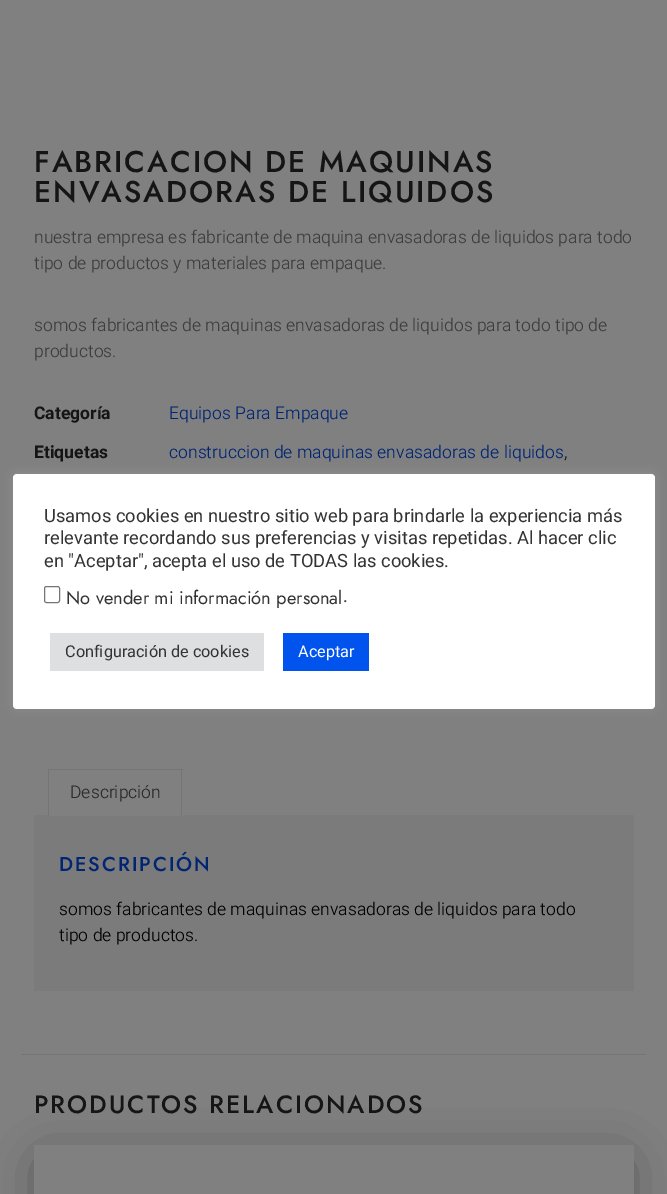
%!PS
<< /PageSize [667 1194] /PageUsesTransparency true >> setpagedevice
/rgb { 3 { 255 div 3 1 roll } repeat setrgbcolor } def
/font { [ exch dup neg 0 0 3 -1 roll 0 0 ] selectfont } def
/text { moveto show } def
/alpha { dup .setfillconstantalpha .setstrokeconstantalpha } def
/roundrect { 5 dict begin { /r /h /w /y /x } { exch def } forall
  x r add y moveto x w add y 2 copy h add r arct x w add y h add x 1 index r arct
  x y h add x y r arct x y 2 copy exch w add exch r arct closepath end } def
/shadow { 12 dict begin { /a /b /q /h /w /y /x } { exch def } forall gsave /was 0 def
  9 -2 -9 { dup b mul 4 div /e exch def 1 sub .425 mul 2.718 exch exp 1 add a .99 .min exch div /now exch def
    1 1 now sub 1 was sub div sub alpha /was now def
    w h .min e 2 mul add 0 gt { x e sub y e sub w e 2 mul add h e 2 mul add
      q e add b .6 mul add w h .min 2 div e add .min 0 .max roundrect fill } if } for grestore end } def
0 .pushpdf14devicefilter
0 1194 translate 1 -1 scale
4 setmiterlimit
128 128 128 rgb
0 0 667 1194 rectfill
123 123 123 rgb
34 815 600 176 rectfill
128 128 128 rgb
48 815 135 1 rectfill
117 117 117 rgb
48 769 135 1 rectfill
182 769 moveto 0 47 rlineto -1 -1 rlineto 0 -45 rlineto closepath fill
48 816 moveto 0 -47 rlineto 1 1 rlineto 0 45 rlineto closepath fill
21 1054 625 1 rectfill
gsave
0 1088 moveto 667 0 rlineto 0 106 rlineto -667 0 rlineto closepath 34 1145 moveto 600 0 rlineto 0 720 rlineto -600 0 rlineto closepath eoclip newpath
0 0 0 rgb
46 1164 575 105 0 25 0.5 shadow
grestore
172 171 171 rgb
13 473 642 235 4 6 0.3 shadow
255 255 255 rgb
13 474 642 235 4 roundrect fill
118 118 118 rgb
44.5 586.5 15 16 2 roundrect stroke
222 223 224 rgb
50 633 214 38 rectfill
0 83 237 rgb
283 633 86 38 rectfill
/Jost-Medium 30 font
21 21 21 rgb
34 172 moveto 2 0 (FABRICACION DE MAQUINAS) ashow
34 202 moveto 2 0 (ENVASADORAS DE LIQUIDOS) ashow
/Heebo-Light 17.5 font
61 61 61 rgb
(nuestra empresa es fabricante de maquina envasadoras de liquidos para todo) 34 243 text
(tipo de productos y materiales para empaque.) 34 269 text
(somos fabricantes de maquinas envasadoras de liquidos para todo tipo de) 34 331 text
(productos.) 34 357 text
/Heebo-Bold 17.5 font
21 21 21 rgb
(Categoría) 34 419 text
/Heebo-Light 17.5 font
1 37 114 rgb
(Equipos Para Empaque) 169 419 text
/Heebo-Bold 17.5 font
21 21 21 rgb
(Etiquetas) 34 458 text
/Heebo-Light 17.5 font
1 37 114 rgb
(construccion de maquinas envasadoras de liquidos) 169 458 text
21 21 21 rgb
(,) 564 458 text
41 41 41 rgb
(Descripción) 70 798 text
/Jost-Medium 20 font
1 37 114 rgb
59 871 moveto 2 0 (DESCRIPCIÓN) ashow
/Heebo-Light 17.5 font
0 0 0 rgb
(somos fabricantes de maquinas envasadoras de liquidos para todo) 59 915 text
(tipo de productos.) 59 941 text
/Jost-Medium 25 font
21 21 21 rgb
34 1113 moveto 2 0 (PRODUCTOS RELACIONADOS) ashow
/Heebo-Regular 18.3 font
51 51 51 rgb
(Usamos cookies en nuestro sitio web para brindarle la experiencia más) 44 522 text
(relevante recordando sus preferencias y visitas repetidas. Al hacer clic) 44 544 text
(en "Aceptar", acepta el uso de TODAS las cookies.) 44 567 text
/Jost-Regular 18.3 font
(No vender mi información personal) 66 604 text
/Heebo-Regular 18.3 font
(.) 343 602 text
/Heebo-Regular 16.25 font
(Configuración de cookies) 65 657 text
255 255 255 rgb
(Aceptar) 298 657 text
.poppdf14devicefilter showpage
